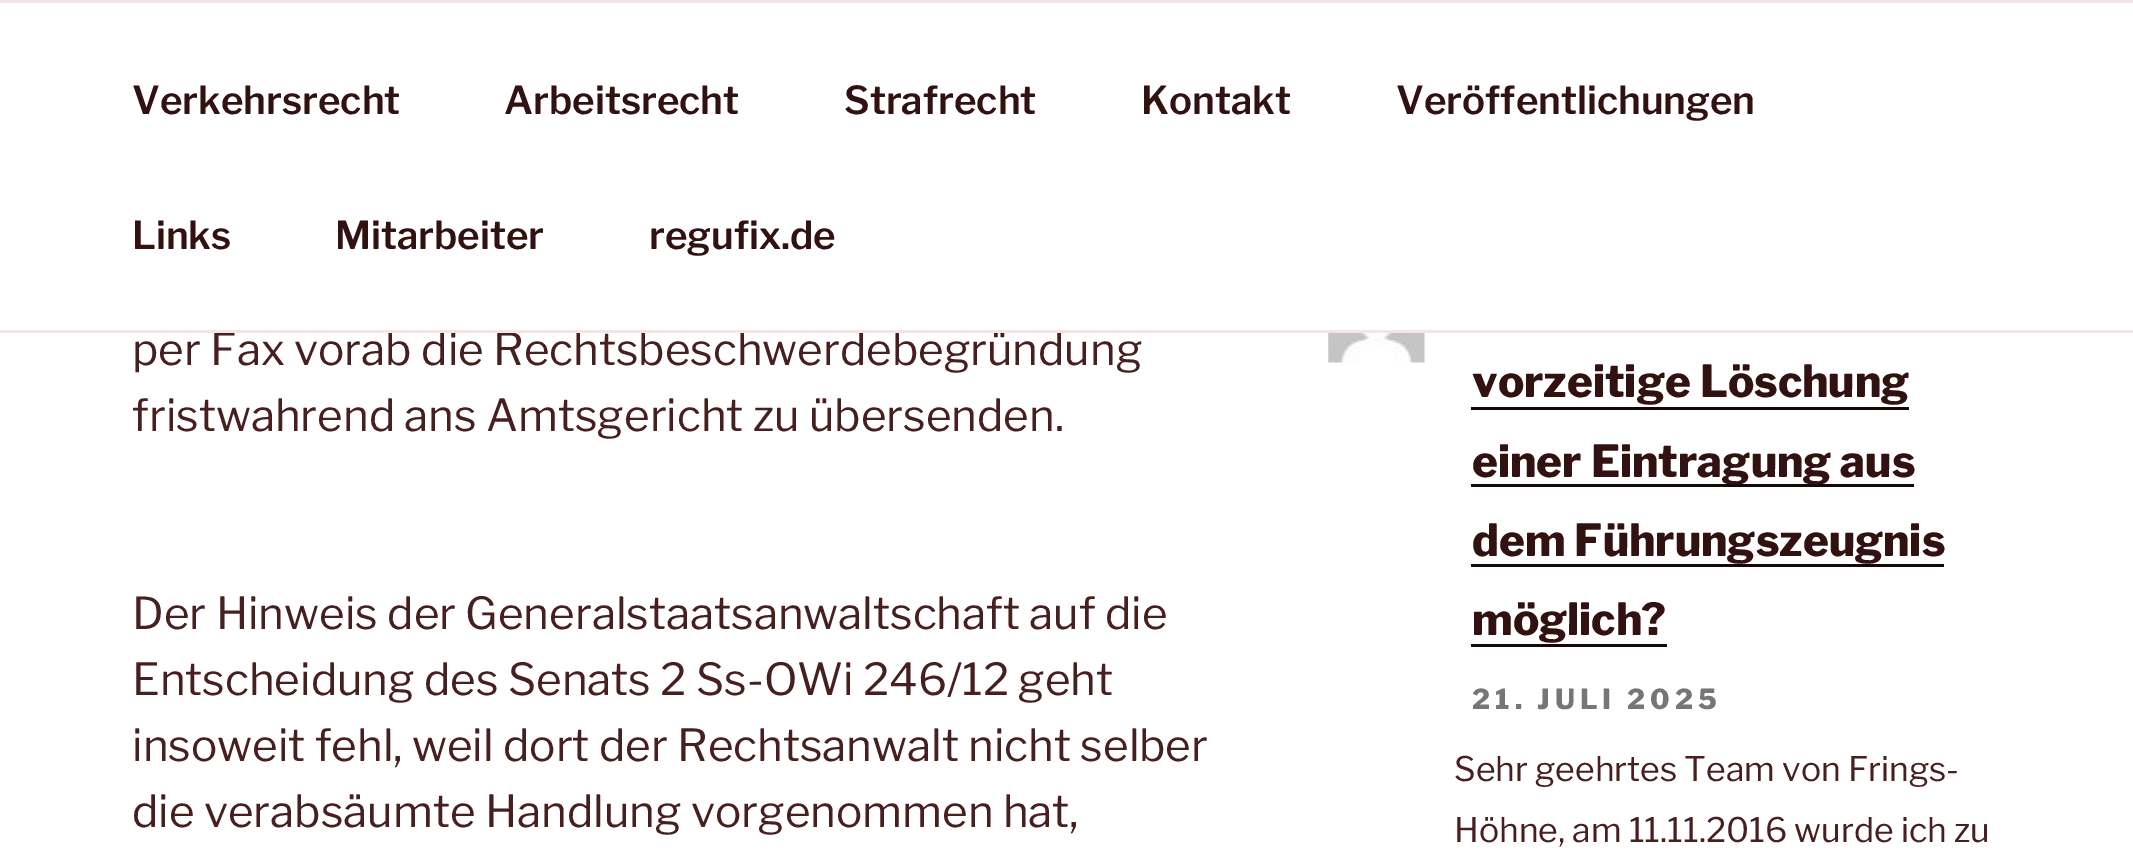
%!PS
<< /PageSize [2133 851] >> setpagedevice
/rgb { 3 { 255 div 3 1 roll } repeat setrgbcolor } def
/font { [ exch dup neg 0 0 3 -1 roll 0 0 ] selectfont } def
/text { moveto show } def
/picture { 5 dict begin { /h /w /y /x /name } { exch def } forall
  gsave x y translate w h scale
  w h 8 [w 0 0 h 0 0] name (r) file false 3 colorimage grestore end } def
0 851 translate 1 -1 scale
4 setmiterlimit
255 255 255 rgb
0 0 2133 851 rectfill
246 228 228 rgb
0 0 2133 3 rectfill
(img_01.rgb) 1328 333 97 30 picture
23 8 8 rgb
1471 407 438 3 rectfill
1471 484 443 3 rectfill
1471 564 473 3 rectfill
1471 644 196 3 rectfill
/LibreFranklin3-Thin 38.5 font
50 17 17 rgb
(Verkehrsrecht) 132 114 text
(Arbeitsrecht) 504 114 text
(Strafrecht) 844 114 text
(Kontakt) 1141 114 text
(Veröffentlichungen) 1396 114 text
(Links) 132 249 text
(Mitarbeiter) 335 249 text
(regufix.de) 649 249 text
/LibreFranklin-Thin 44 font
71 31 31 rgb
(per Fax vorab die Rechtsbeschwerdebegründung) 132 365 text
246 228 228 rgb
0 330 2133 3 rectfill
71 31 31 rgb
(fristwahrend ans Amtsgericht zu übersenden.) 132 431 text
(Der Hinweis der Generalstaatsanwaltschaft auf die) 132 629 text
(Entscheidung des Senats 2 Ss-OWi 246/12 geht) 132 695 text
(insoweit fehl, weil dort der Rechtsanwalt nicht selber) 132 761 text
(die verabsäumte Handlung vorgenommen hat,) 132 827 text
/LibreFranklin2-Thin 44 font
50 17 17 rgb
(vorzeitige Löschung) 1472 397 text
(einer Eintragung aus) 1472 477 text
(dem Führungszeugnis) 1472 556 text
(möglich?) 1472 635 text
/LibreFranklin2-Thin 27.5 font
118 118 118 rgb
1472 709 moveto 5 0 (21. JULI 2025) ashow
/LibreFranklin-Thin 33.75 font
71 31 31 rgb
(Sehr geehrtes Team von Frings-) 1454 781 text
(Höhne, am 11.11.2016 wurde ich zu) 1454 842 text
showpage
